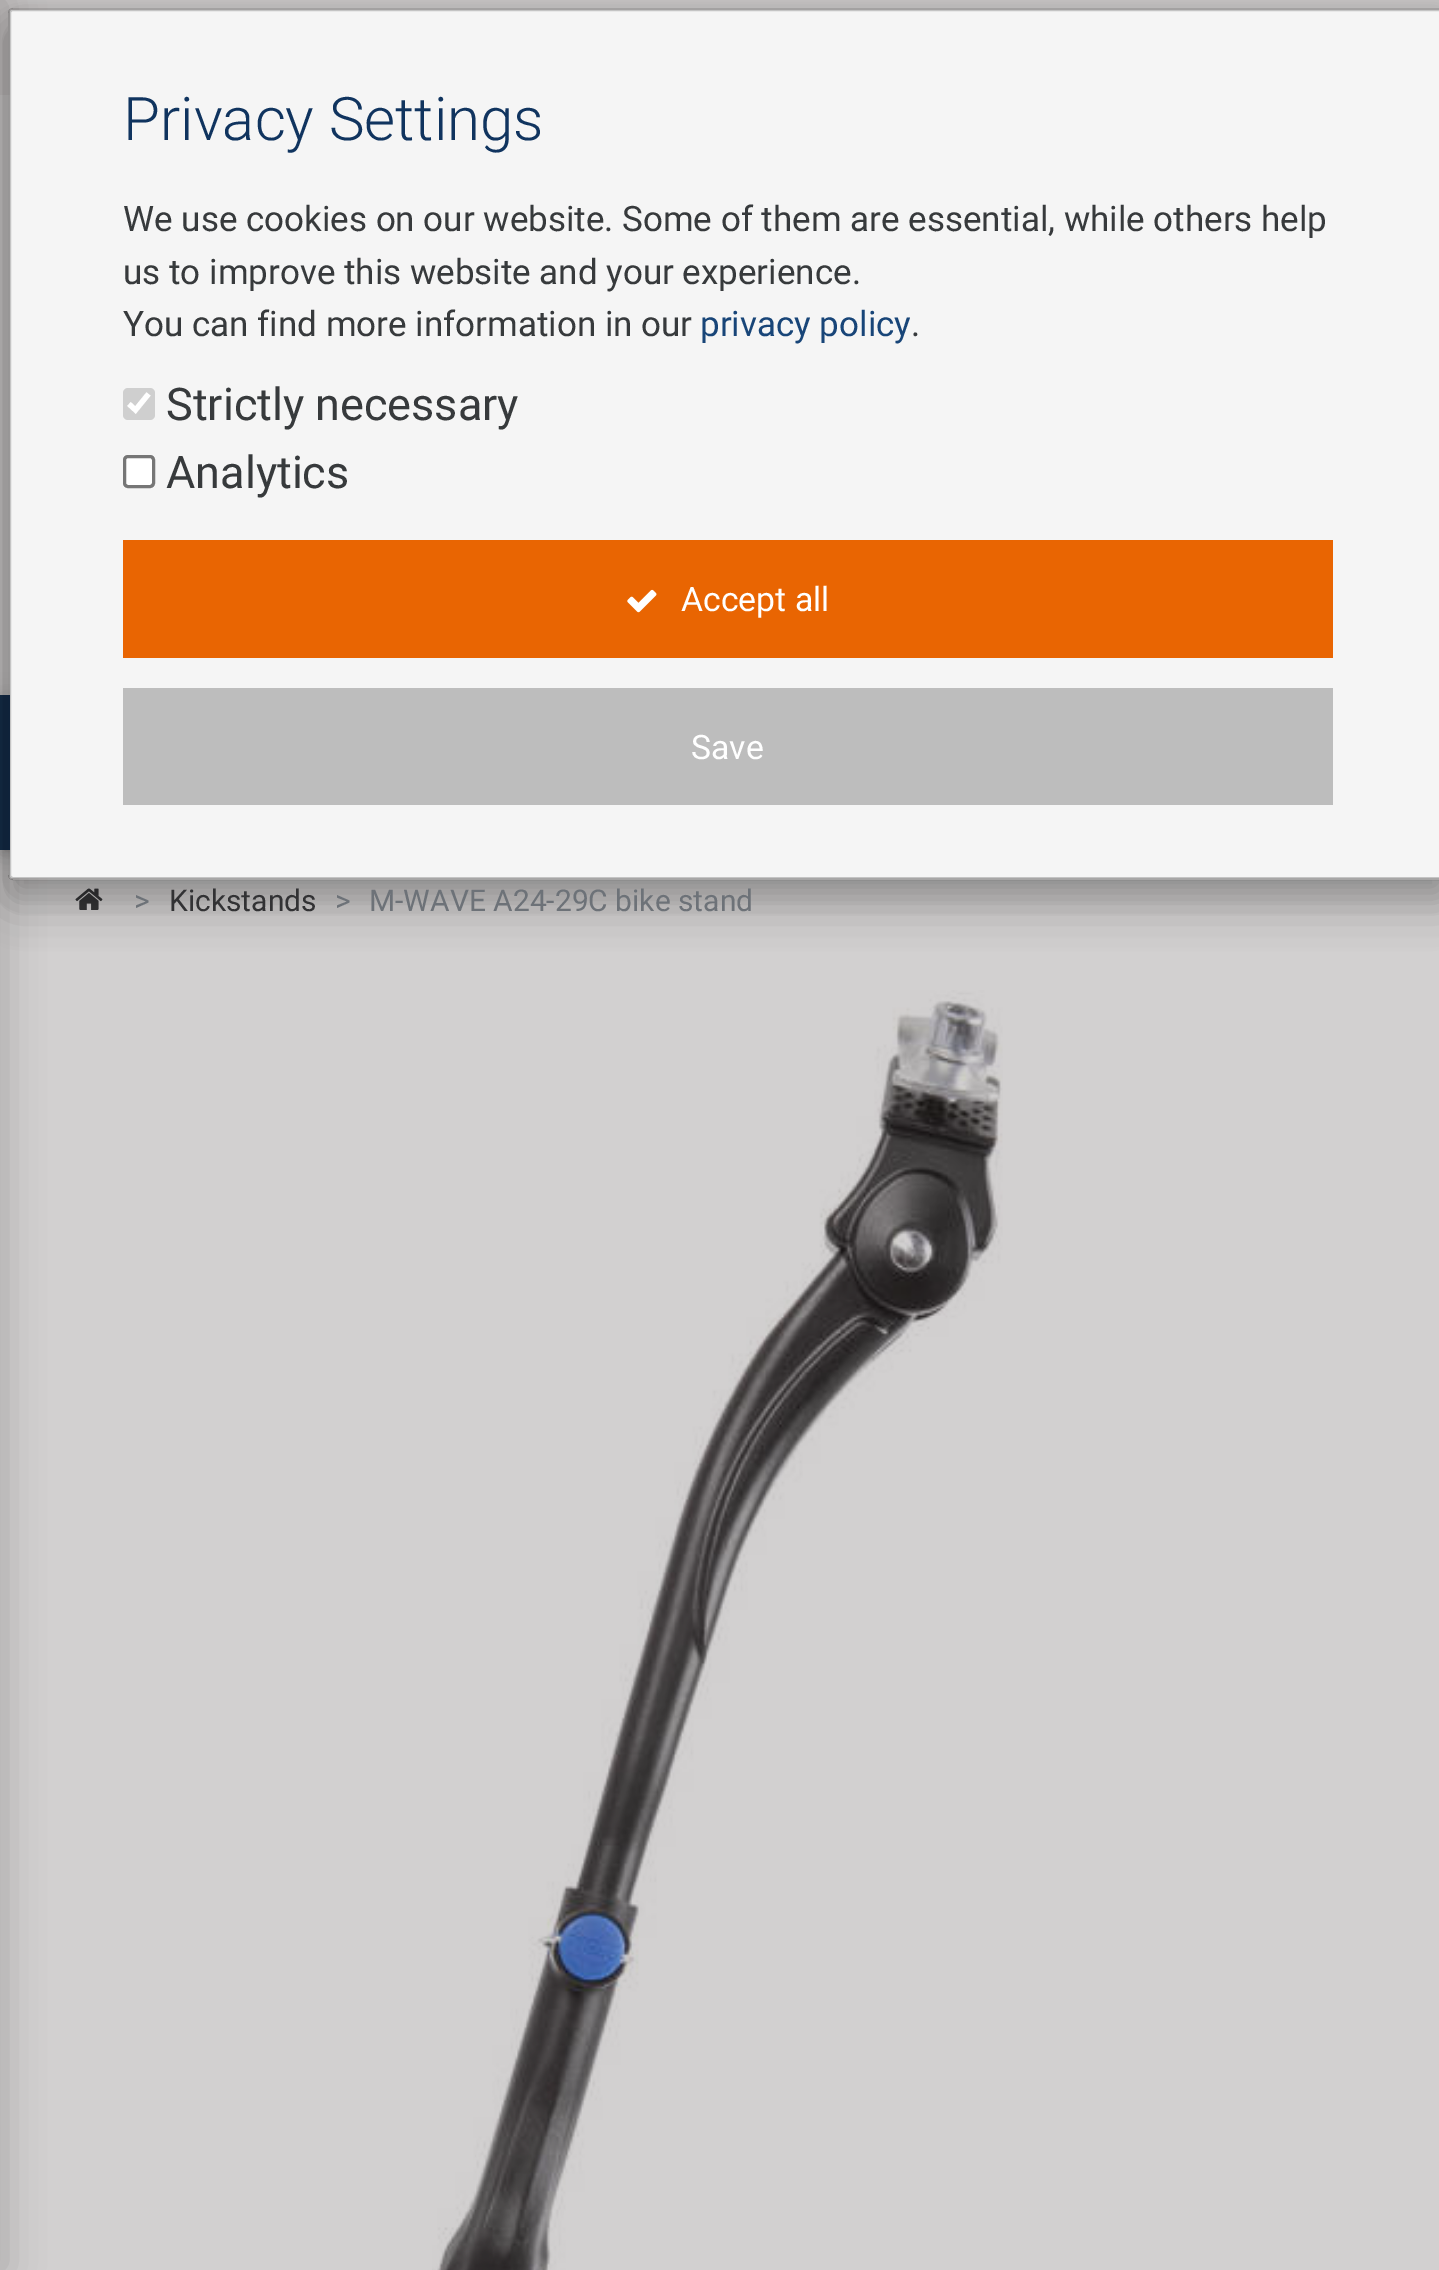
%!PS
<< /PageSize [1439 2270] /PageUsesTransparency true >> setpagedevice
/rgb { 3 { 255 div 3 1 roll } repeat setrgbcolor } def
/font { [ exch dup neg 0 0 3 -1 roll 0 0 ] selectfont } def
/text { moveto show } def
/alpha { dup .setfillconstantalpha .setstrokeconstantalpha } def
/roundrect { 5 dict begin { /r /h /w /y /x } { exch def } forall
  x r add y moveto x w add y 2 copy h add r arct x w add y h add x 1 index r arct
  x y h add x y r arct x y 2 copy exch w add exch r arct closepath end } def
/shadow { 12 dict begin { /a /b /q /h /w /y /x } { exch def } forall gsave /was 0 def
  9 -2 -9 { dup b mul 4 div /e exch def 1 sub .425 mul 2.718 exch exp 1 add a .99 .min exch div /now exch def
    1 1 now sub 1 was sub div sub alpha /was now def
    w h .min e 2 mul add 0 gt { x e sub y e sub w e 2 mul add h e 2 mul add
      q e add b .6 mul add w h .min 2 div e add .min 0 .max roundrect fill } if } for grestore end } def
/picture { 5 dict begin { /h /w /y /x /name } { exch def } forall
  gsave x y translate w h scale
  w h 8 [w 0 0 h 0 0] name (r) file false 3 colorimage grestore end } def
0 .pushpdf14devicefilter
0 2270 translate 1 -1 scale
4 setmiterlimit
210 208 208 rgb
0 0 1439 2270 rectfill
204 201 201 rgb
0 0 1439 95 rectfill
6 4 4 rgb
0 700 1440 155 0 12.5 0.12 shadow
0 700 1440 155 0 6 0.16 shadow
19 46 80 rgb
0 695 10 155 rectfill
6 4 4 rgb
-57 0 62 2270 0 19 0.2 shadow
(img_02.rgb) 75 888 28 22 picture
gsave
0 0 moveto 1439 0 rlineto 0 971 rlineto -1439 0 rlineto closepath 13 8 moveto 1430 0 rlineto 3 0 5 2 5 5 rcurveto 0 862 rlineto 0 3 -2 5 -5 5 rcurveto -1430 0 rlineto -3 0 -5 -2 -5 -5 rcurveto 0 -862 rlineto 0 -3 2 -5 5 -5 rcurveto closepath eoclip newpath
0 0 0 rgb
8 23 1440 872 5 25 0.19 shadow
grestore
gsave
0 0 moveto 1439 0 rlineto 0 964 rlineto -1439 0 rlineto closepath 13 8 moveto 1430 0 rlineto 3 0 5 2 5 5 rcurveto 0 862 rlineto 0 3 -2 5 -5 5 rcurveto -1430 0 rlineto -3 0 -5 -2 -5 -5 rcurveto 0 -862 rlineto 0 -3 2 -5 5 -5 rcurveto closepath eoclip newpath
0 0 0 rgb
8 28 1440 872 5 21 0.2 shadow
grestore
245 245 245 rgb
12.5 10 moveto 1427.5 0 rlineto 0 868 rlineto -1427.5 0 rlineto -1.5 0 -2.5 -1 -2.5 -2.5 rcurveto 0 -863 rlineto 0 -1.5 1 -2.5 2.5 -2.5 rcurveto closepath fill
0.2 alpha
0 0 0 rgb
3 setlinewidth
9.5 9.5 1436 869 3.5 roundrect stroke
1 alpha
207 207 207 rgb
123 388 32 32 5 roundrect fill
255 255 255 rgb
5.2 setlinewidth
129 404 moveto 6.5 6 rlineto 13 -16 rlineto stroke
124.5 456.5 29 30 3.5 roundrect gsave fill grestore
118 118 118 rgb
3 setlinewidth
stroke
233 101 2 rgb
123 540 1210 118 rectfill
(img_01.rgb) 627 589 30 24 picture
189 189 189 rgb
123 688 1210 117 rectfill
(img_03.rgb) 432 990 571 1280 picture
/Roboto-Light 60 font
16 52 95 rgb
(Privacy Settings) 123 140 text
/Roboto-Regular 35 font
55 58 60 rgb
(We use cookies on our website. Some of them are essential, while others help) 123 231 text
(us to improve this website and your experience.) 123 284 text
(You can find more information in our) 123 336 text
24 69 120 rgb
(privacy policy) 700 336 text
55 58 60 rgb
(.) 911 336 text
/Roboto-Regular 45 font
(Strictly necessary) 166 420 text
(Analytics) 166 488 text
/Roboto-Regular 33.75 font
255 255 255 rgb
(Accept all) 681 611 text
(Save) 691 759 text
/Roboto-Regular 30 font
109 114 120 rgb
(>) 134 911 text
50 50 52 rgb
(Kickstands) 169 911 text
109 114 120 rgb
(>) 335 911 text
(M-WAVE A24-29C bike stand) 369 911 text
.poppdf14devicefilter showpage
